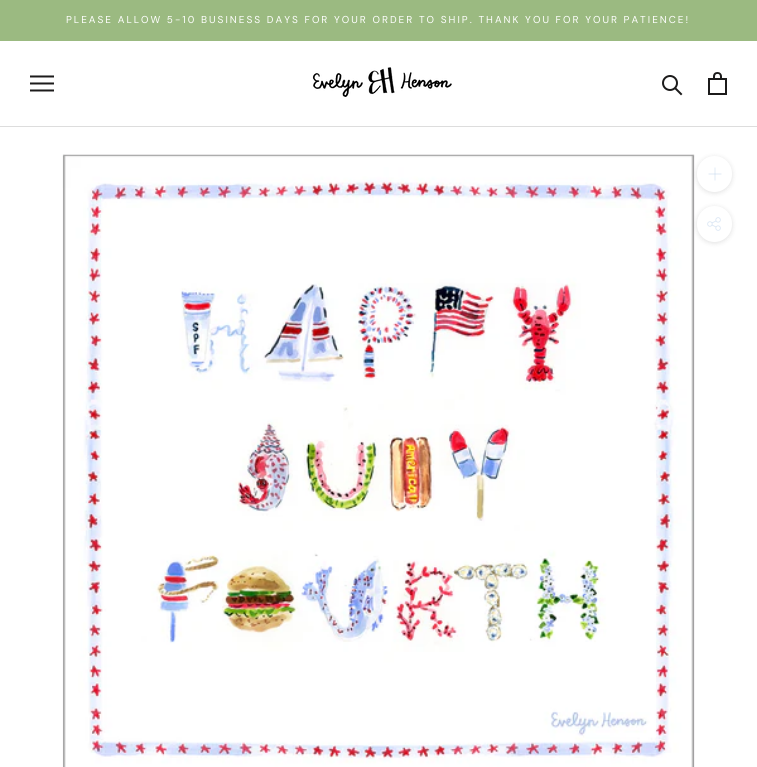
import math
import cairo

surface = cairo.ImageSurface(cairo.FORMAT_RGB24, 757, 767)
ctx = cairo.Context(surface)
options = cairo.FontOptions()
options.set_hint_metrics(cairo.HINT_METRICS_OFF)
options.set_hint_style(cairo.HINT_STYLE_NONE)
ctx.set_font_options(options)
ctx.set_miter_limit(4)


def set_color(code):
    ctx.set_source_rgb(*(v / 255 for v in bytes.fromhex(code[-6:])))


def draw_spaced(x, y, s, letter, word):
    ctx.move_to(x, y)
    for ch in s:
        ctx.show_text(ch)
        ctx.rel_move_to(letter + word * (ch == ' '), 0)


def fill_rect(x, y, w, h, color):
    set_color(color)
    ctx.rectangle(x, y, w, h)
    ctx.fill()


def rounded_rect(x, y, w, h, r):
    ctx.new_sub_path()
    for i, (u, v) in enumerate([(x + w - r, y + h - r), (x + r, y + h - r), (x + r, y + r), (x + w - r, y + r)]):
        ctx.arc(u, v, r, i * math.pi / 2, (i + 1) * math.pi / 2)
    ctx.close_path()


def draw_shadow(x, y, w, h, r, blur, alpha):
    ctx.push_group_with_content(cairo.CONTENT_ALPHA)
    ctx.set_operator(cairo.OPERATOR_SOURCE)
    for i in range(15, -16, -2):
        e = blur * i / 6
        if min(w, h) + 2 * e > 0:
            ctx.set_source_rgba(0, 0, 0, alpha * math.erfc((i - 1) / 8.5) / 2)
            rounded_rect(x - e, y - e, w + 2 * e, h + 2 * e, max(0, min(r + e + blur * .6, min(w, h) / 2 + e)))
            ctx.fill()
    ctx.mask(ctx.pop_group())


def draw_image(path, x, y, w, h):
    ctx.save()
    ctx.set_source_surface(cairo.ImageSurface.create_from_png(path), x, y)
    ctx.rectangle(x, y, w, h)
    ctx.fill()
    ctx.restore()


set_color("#ffffff")
ctx.paint()
fill_rect(0, 0, 757, 41, "#9bba81")
ctx.select_font_face("DM Sans")
ctx.set_font_size(10)
set_color("#ffffff")
draw_spaced(66, 23, "PLEASE ALLOW 5-10 BUSINESS DAYS FOR YOUR ORDER TO SHIP. THANK YOU FOR YOUR PATIENCE!", 2, 0)
fill_rect(0, 126, 757, 1, "#dddddd")
draw_image("assets/img1.png", 30, 75, 24, 17)
draw_image("assets/img2.png", 312, 67, 140, 30)
ctx.new_path()
ctx.move_to(681, 94)
ctx.line_to(675.5, 88.5)
set_color("#1c1b1b")
ctx.set_line_cap(cairo.LINE_CAP_SQUARE)
ctx.stroke()
ctx.arc(670, 83, 7, 0, 2 * math.pi)
ctx.set_line_cap(cairo.LINE_CAP_BUTT)
ctx.stroke()
draw_image("assets/img3.png", 708, 72, 19, 23)
draw_image("assets/img4.png", 62, 154, 633, 613)
set_color("#363636")
draw_shadow(697, 157, 35, 36, 17.5, 2.5, 0.15)
set_color("#ffffff")
rounded_rect(697, 156, 35, 36, 17.5)
ctx.fill()
ctx.new_path()
ctx.move_to(715, 168)
ctx.line_to(715, 180)
set_color("#dee8f5")
ctx.set_line_width(0.9)
ctx.set_line_cap(cairo.LINE_CAP_SQUARE)
ctx.stroke()
ctx.new_path()
ctx.move_to(709, 174)
ctx.line_to(721, 174)
ctx.set_source_rgba(0.737, 0.82, 0.918, 0.5)
ctx.stroke()
set_color("#363636")
draw_shadow(697, 207, 35, 36, 17.5, 2.5, 0.15)
set_color("#ffffff")
rounded_rect(697, 206, 35, 36, 17.5)
ctx.fill()
draw_image("assets/img5.png", 707, 217, 14, 14)
surface.write_to_png("output.png")
